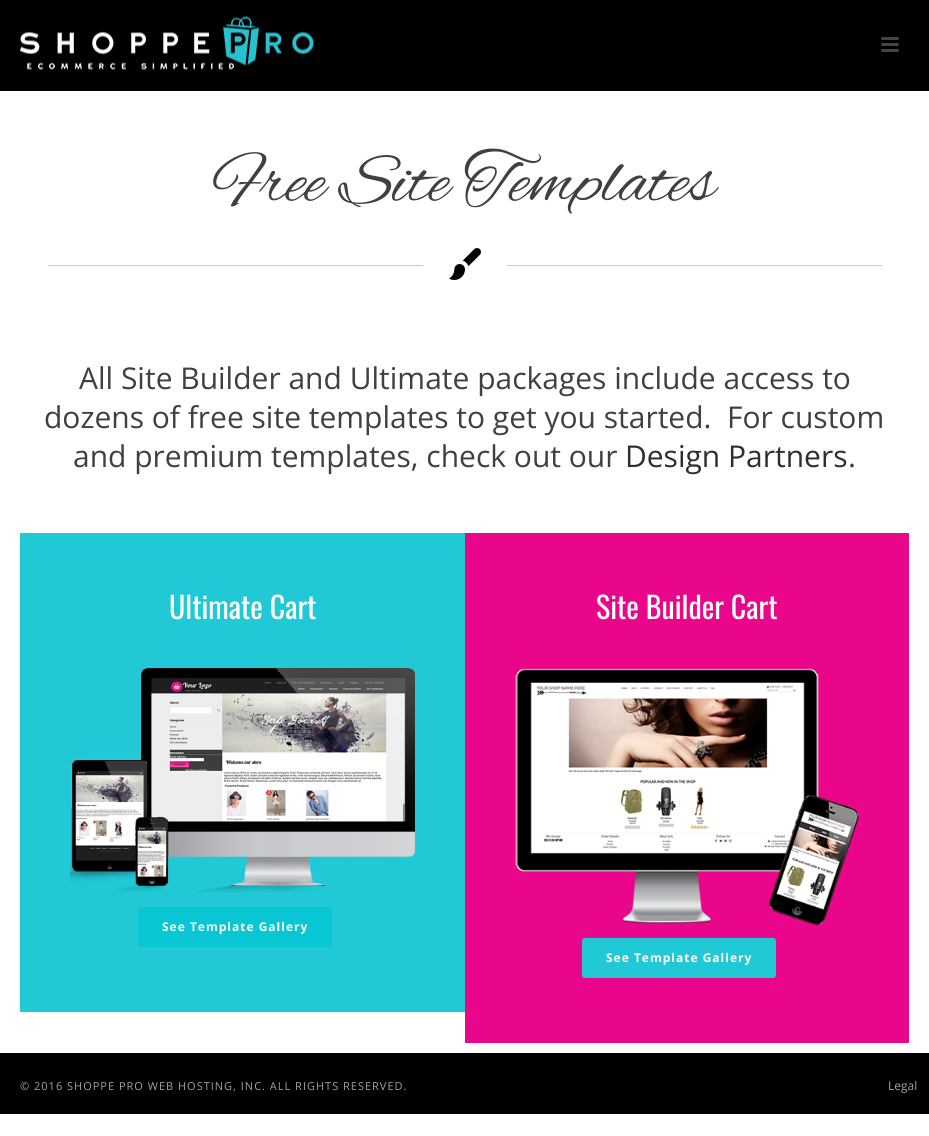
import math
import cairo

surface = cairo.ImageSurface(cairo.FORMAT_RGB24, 929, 1136)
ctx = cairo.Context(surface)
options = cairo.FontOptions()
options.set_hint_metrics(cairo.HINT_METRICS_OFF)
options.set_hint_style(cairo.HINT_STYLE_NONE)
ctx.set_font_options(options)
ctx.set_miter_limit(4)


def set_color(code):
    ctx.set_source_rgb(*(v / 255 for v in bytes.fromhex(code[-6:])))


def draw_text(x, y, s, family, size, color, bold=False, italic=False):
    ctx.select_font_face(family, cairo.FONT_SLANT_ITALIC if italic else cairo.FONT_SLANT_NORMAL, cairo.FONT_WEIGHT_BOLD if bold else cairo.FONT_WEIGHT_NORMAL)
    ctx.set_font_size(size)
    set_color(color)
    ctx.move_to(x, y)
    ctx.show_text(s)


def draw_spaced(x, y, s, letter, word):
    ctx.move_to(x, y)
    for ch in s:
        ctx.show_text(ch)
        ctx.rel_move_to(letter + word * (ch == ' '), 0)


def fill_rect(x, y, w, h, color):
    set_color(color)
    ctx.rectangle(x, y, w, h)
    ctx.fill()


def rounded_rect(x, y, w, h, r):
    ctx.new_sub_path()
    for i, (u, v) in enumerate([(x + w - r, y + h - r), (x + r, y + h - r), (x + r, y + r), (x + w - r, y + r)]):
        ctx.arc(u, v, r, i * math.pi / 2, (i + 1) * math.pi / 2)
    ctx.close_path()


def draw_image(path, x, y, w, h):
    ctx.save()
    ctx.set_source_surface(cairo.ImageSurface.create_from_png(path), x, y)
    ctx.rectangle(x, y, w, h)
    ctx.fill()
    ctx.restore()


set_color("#ffffff")
ctx.paint()
fill_rect(0, 0, 929, 91, "#000000")
draw_image("assets/img1.png", 20, 16, 294, 54)
set_color("#444444")
rounded_rect(881, 37, 18, 3, 1.5)
ctx.fill()
rounded_rect(881, 43, 18, 3, 1.5)
ctx.fill()
rounded_rect(881, 49, 18, 3, 1.5)
ctx.fill()
draw_text(214, 200, "Free Site Templates", "Alex Brush", 72, "#404040")
fill_rect(48, 265, 375, 1, "#cccccc")
draw_image("assets/img2.png", 449, 248, 32, 32)
fill_rect(507, 265, 375, 1, "#cccccc")
draw_text(79, 389, "All Site Builder and Ultimate packages include access to", "Open Sans", 30, "#404040")
draw_text(44, 428, "dozens of free site templates to get you started.  For custom", "Open Sans", 30, "#404040")
draw_text(73, 467, "and premium templates, check out our", "Open Sans", 30, "#404040")
draw_text(625, 467, "Design Partners", "Open Sans", 30, "#2e2e2e")
draw_text(848, 467, ".", "Open Sans", 30, "#404040")
fill_rect(20, 533, 445, 479, "#21c8d6")
draw_text(169, 619, "Ultimate Cart", "Oswald", 30, "#ffffff")
draw_image("assets/img3.png", 70, 668, 345, 225)
set_color("#09c6d4")
rounded_rect(138, 907, 194, 40, 3)
ctx.fill()
ctx.select_font_face("Open Sans", cairo.FONT_SLANT_NORMAL, cairo.FONT_WEIGHT_BOLD)
ctx.set_font_size(12)
set_color("#ffffff")
draw_spaced(162, 931, "See Template Gallery", 1, 0)
fill_rect(465, 533, 444, 510, "#e9068b")
draw_text(596, 619, "Site Builder Cart", "Oswald", 30, "#ffffff")
draw_image("assets/img4.png", 515, 668, 344, 259)
set_color("#21c8d6")
rounded_rect(582, 938, 194, 40, 3)
ctx.fill()
ctx.select_font_face("Open Sans", cairo.FONT_SLANT_NORMAL, cairo.FONT_WEIGHT_BOLD)
ctx.set_font_size(12)
set_color("#ffffff")
draw_spaced(606, 962, "See Template Gallery", 1, 0)
fill_rect(0, 1053, 929, 61, "#000000")
ctx.select_font_face("Open Sans")
ctx.set_font_size(11)
set_color("#a3a3a3")
draw_spaced(20, 1090, "© 2016 SHOPPE PRO WEB HOSTING, INC. ALL RIGHTS RESERVED.", 1, 0)
draw_text(888, 1090, "Legal", "Open Sans", 12, "#a3a3a3")
surface.write_to_png("output.png")
